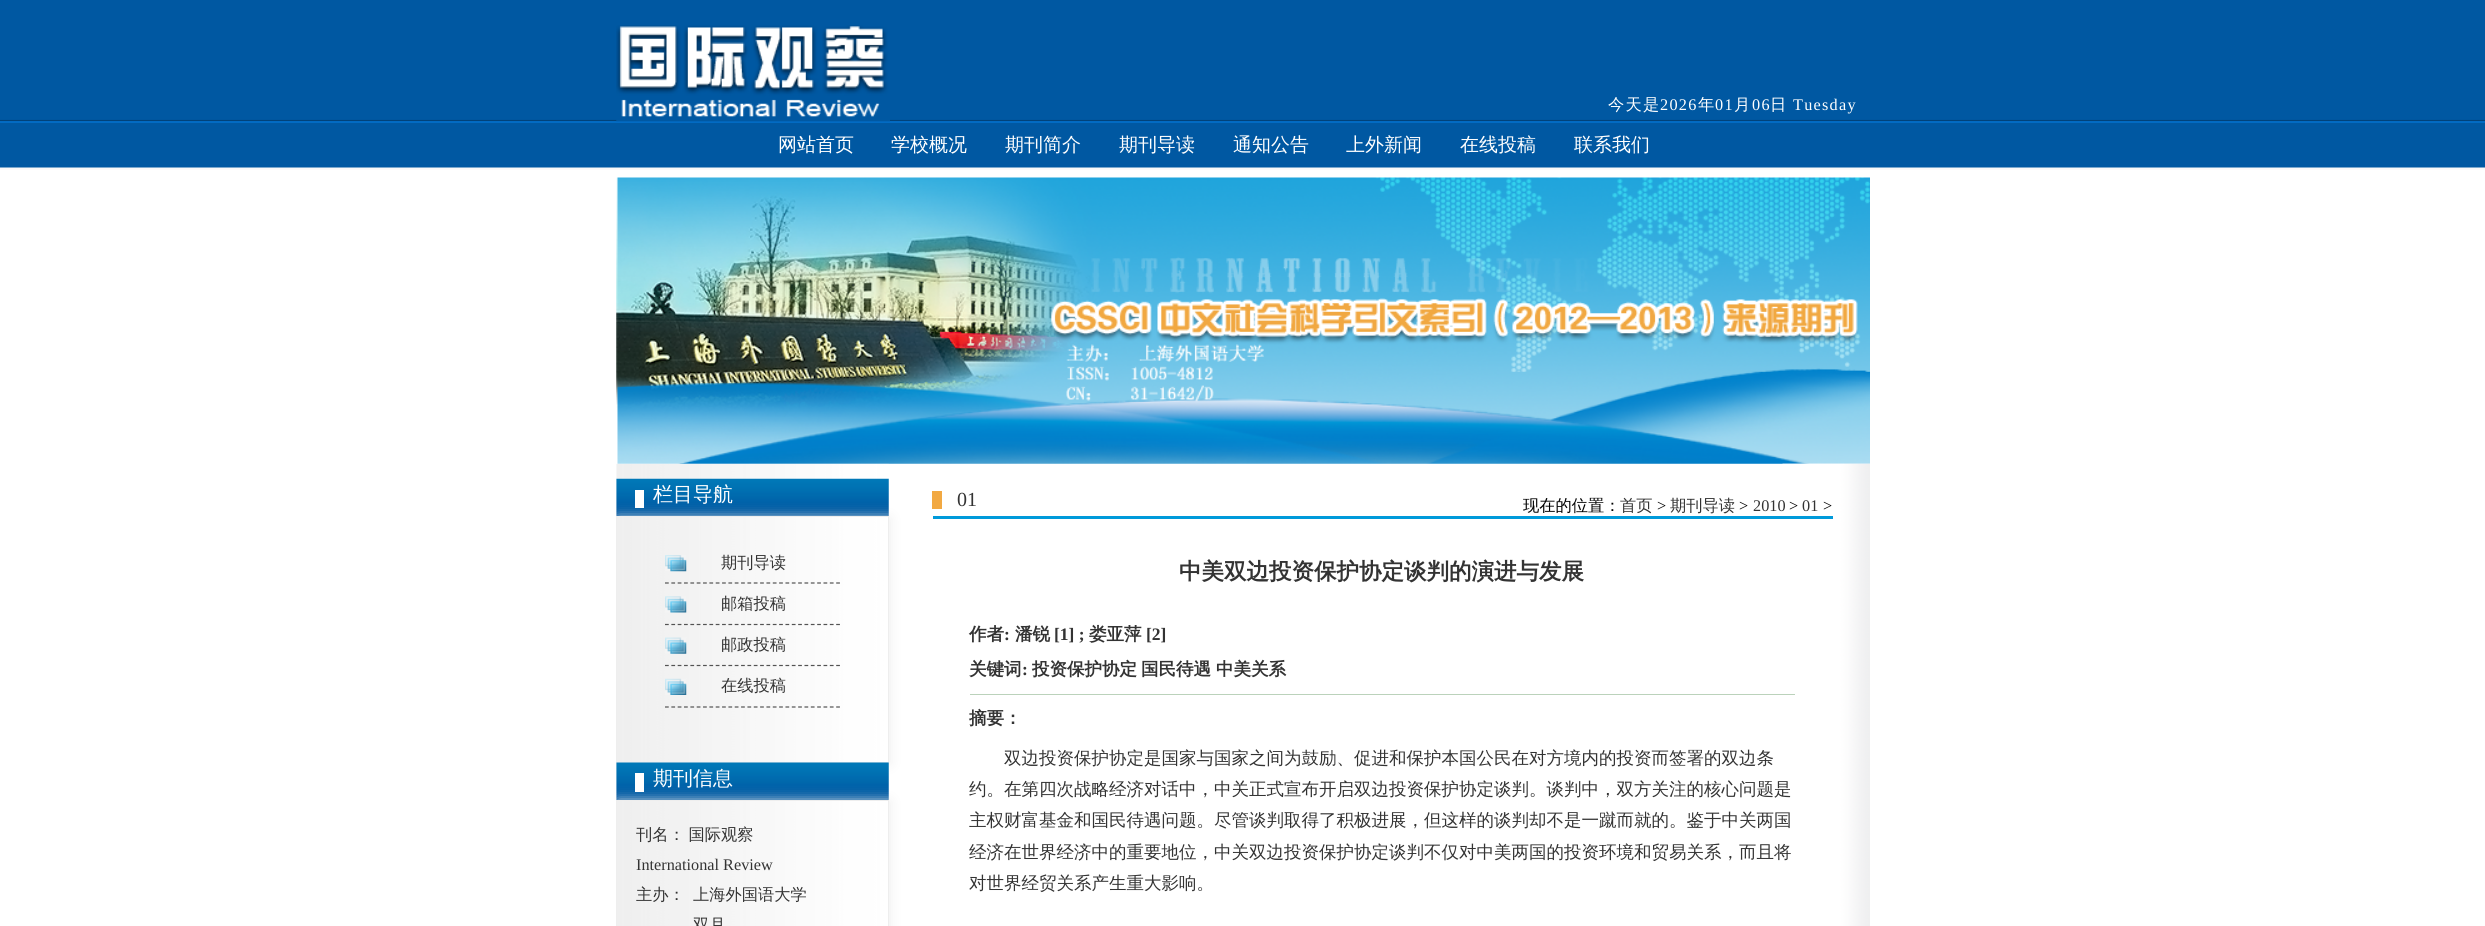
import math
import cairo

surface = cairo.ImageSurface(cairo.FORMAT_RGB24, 2485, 926)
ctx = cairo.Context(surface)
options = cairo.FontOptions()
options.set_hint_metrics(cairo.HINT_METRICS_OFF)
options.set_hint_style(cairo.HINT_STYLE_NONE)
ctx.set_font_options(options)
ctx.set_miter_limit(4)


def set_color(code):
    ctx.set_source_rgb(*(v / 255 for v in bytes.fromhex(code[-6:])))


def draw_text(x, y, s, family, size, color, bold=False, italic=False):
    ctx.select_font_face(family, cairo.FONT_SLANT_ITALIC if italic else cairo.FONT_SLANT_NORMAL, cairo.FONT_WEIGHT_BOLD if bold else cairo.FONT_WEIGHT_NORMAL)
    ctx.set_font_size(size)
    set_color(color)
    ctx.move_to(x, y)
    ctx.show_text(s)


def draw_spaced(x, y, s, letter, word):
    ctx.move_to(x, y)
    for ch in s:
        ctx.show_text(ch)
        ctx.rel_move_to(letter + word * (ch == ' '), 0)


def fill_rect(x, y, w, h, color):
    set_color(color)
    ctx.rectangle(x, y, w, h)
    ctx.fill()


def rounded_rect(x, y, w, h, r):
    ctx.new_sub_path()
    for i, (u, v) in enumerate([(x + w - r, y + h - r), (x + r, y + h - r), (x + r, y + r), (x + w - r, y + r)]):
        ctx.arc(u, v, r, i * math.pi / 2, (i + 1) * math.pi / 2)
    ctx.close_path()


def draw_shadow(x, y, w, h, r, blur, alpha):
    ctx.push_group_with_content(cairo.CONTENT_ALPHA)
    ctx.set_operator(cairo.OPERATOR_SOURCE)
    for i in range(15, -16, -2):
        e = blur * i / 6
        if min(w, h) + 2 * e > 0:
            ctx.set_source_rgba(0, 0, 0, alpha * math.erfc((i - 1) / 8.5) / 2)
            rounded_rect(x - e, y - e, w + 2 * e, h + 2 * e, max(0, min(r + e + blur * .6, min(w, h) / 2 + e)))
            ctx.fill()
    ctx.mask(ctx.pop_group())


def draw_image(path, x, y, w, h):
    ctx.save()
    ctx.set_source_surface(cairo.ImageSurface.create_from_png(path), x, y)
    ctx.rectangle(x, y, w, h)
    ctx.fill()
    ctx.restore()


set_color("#ffffff")
ctx.paint()
draw_image("assets/img1.png", 0, 0, 2485, 170)
draw_image("assets/img2.png", 616, 25, 274, 97)
ctx.select_font_face("WenQuanYi Zen Hei Medium")
ctx.set_font_size(16.25)
set_color("#ffffff")
draw_spaced(1608, 110, "今天是", 1.25, 0)
ctx.select_font_face("Liberation Serif")
draw_spaced(1660, 110, "2026", 1.25, 0)
ctx.select_font_face("WenQuanYi Zen Hei Medium")
draw_spaced(1698, 110, "年", 1.25, 0)
ctx.select_font_face("Liberation Serif")
draw_spaced(1715, 110, "01", 1.25, 0)
ctx.select_font_face("WenQuanYi Zen Hei Medium")
draw_spaced(1734, 110, "月", 1.25, 0)
ctx.select_font_face("Liberation Serif")
draw_spaced(1752, 110, "06", 1.25, 0)
ctx.select_font_face("WenQuanYi Zen Hei Medium")
draw_spaced(1770, 110, "日", 1.25, 0)
ctx.select_font_face("Liberation Serif")
draw_spaced(1793, 110, "Tuesday", 1.25, 0)
draw_text(778, 151, "网站首页", "WenQuanYi Zen Hei Medium", 19, "#ffffff")
draw_text(891, 151, "学校概况", "WenQuanYi Zen Hei Medium", 19, "#ffffff")
draw_text(1005, 151, "期刊简介", "WenQuanYi Zen Hei Medium", 19, "#ffffff")
draw_text(1119, 151, "期刊导读", "WenQuanYi Zen Hei Medium", 19, "#ffffff")
draw_text(1233, 151, "通知公告", "WenQuanYi Zen Hei Medium", 19, "#ffffff")
draw_text(1346, 151, "上外新闻", "WenQuanYi Zen Hei Medium", 19, "#ffffff")
draw_text(1460, 151, "在线投稿", "WenQuanYi Zen Hei Medium", 19, "#ffffff")
draw_text(1574, 151, "联系我们", "WenQuanYi Zen Hei Medium", 19, "#ffffff")
draw_image("assets/img3.png", 616, 177, 1254, 287)
draw_image("assets/img4.png", 1782, 463, 88, 463)
draw_image("assets/img5.png", 616, 463, 273, 463)
draw_image("assets/img6.png", 616, 478, 273, 38)
ctx.save()
ctx.rectangle(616, 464, 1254, 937)
ctx.clip()
ctx.set_fill_rule(cairo.FILL_RULE_EVEN_ODD)
ctx.new_path()
ctx.move_to(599, 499)
ctx.line_to(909, 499)
ctx.line_to(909, 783)
ctx.line_to(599, 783)
ctx.close_path()
ctx.move_to(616, 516)
ctx.line_to(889, 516)
ctx.line_to(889, 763)
ctx.line_to(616, 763)
ctx.close_path()
ctx.clip()
set_color("#eeeeee")
draw_shadow(618, 518, 272, 246, 0, 6, 1)
ctx.restore()
fill_rect(635, 490, 9, 18, "#ffffff")
draw_text(653, 501, "栏目导航", "WenQuanYi Zen Hei Medium", 20, "#ffffff")
ctx.rectangle(616.5, 516.5, 272, 246)
set_color("#eeeeee")
ctx.set_line_width(1)
ctx.stroke()
draw_image("assets/img7.png", 665, 555, 22, 17)
ctx.new_path()
ctx.move_to(665, 583)
ctx.line_to(840, 583)
set_color("#535353")
ctx.set_line_width(1.2)
ctx.set_dash([3.75, 2.59])
ctx.stroke()
draw_text(721, 568, "期刊导读", "WenQuanYi Zen Hei Medium", 16.25, "#333333")
draw_image("assets/img8.png", 665, 596, 22, 17)
ctx.new_path()
ctx.move_to(665, 624.5)
ctx.line_to(840, 624.5)
set_color("#535353")
ctx.stroke()
draw_text(721, 609, "邮箱投稿", "WenQuanYi Zen Hei Medium", 16.25, "#333333")
draw_image("assets/img9.png", 665, 637, 22, 17)
ctx.new_path()
ctx.move_to(665, 665.5)
ctx.line_to(840, 665.5)
set_color("#535353")
ctx.stroke()
draw_text(721, 650, "邮政投稿", "WenQuanYi Zen Hei Medium", 16.25, "#333333")
draw_image("assets/img10.png", 665, 678, 22, 17)
ctx.new_path()
ctx.move_to(665, 707)
ctx.line_to(840, 707)
set_color("#535353")
ctx.stroke()
draw_text(721, 691, "在线投稿", "WenQuanYi Zen Hei Medium", 16.25, "#333333")
draw_image("assets/img11.png", 616, 762, 273, 38)
ctx.save()
ctx.rectangle(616, 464, 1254, 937)
ctx.clip()
ctx.set_fill_rule(cairo.FILL_RULE_EVEN_ODD)
ctx.new_path()
ctx.move_to(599, 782)
ctx.line_to(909, 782)
ctx.line_to(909, 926)
ctx.line_to(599, 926)
ctx.close_path()
ctx.move_to(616, 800)
ctx.line_to(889, 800)
ctx.line_to(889, 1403)
ctx.line_to(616, 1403)
ctx.close_path()
ctx.clip()
set_color("#eeeeee")
draw_shadow(618, 801, 272, 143, 0, 6, 1)
ctx.restore()
fill_rect(635, 773, 9, 19, "#ffffff")
draw_text(653, 785, "期刊信息", "WenQuanYi Zen Hei Medium", 20, "#ffffff")
ctx.rectangle(616.5, 800.5, 272, 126)
set_color("#eeeeee")
ctx.set_line_width(1)
ctx.set_dash([])
ctx.stroke()
ctx.set_font_size(16.25)
set_color("#333333")
draw_spaced(636, 840, "刊名： 国际观察", 0, -1)
draw_text(636, 870, "International Review", "Liberation Serif", 16.25, "#333333")
draw_text(636, 900, "主办：", "WenQuanYi Zen Hei Medium", 16.25, "#333333")
draw_text(693, 900, "上海外国语大学", "WenQuanYi Zen Hei Medium", 16.25, "#333333")
draw_text(693, 930, "双月", "WenQuanYi Zen Hei Medium", 16.25, "#333333")
fill_rect(932, 491, 10, 18, "#f2a942")
draw_text(957, 506, "01", "Liberation Serif", 20, "#333333")
draw_text(1523, 511, "现在的位置：", "WenQuanYi Zen Hei Medium", 16.25, "#000000")
draw_text(1620, 511, "首页", "WenQuanYi Zen Hei Medium", 16.25, "#333333")
draw_text(1657, 511, ">", "Liberation Serif", 16.25, "#000000")
draw_text(1670, 511, "期刊导读", "WenQuanYi Zen Hei Medium", 16.25, "#333333")
draw_text(1739, 511, ">", "Liberation Serif", 16.25, "#000000")
draw_text(1753, 511, "2010", "Liberation Serif", 16.25, "#333333")
draw_text(1789, 511, ">", "Liberation Serif", 16.25, "#000000")
draw_text(1802, 511, "01", "Liberation Serif", 16.25, "#333333")
draw_text(1823, 511, ">", "Liberation Serif", 16.25, "#000000")
fill_rect(933, 516, 900, 3, "#009ada")
draw_text(1179, 579, "中美双边投资保护协定谈判的演进与发展", "WenQuanYi Zen Hei", 22.5, "#333333", bold=True)
draw_text(969, 640, "作者", "WenQuanYi Zen Hei", 17.5, "#333333", bold=True)
draw_text(1004, 640, ":", "Liberation Serif", 17.5, "#333333", bold=True)
draw_text(1015, 640, "潘锐", "WenQuanYi Zen Hei", 17.5, "#333333", bold=True)
draw_text(1054, 640, "[1] ;", "Liberation Serif", 17.5, "#333333", bold=True)
draw_text(1089, 640, "娄亚萍", "WenQuanYi Zen Hei", 17.5, "#333333", bold=True)
draw_text(1146, 640, "[2]", "Liberation Serif", 17.5, "#333333", bold=True)
fill_rect(970, 694, 825, 1, "#bbd2bb")
draw_text(969, 675, "关键词", "WenQuanYi Zen Hei", 17.5, "#333333", bold=True)
draw_text(1022, 675, ":", "Liberation Serif", 17.5, "#333333", bold=True)
draw_text(1032, 675, "投资保护协定", "WenQuanYi Zen Hei", 17.5, "#333333", bold=True)
draw_text(1141, 675, "国民待遇", "WenQuanYi Zen Hei", 17.5, "#333333", bold=True)
draw_text(1216, 675, "中美关系", "WenQuanYi Zen Hei", 17.5, "#333333", bold=True)
draw_text(969, 724, "摘要：", "WenQuanYi Zen Hei", 17.5, "#333333", bold=True)
draw_text(1004, 764, "双边投资保护协定是国家与国家之间为鼓励、促进和保护本国公民在对方境内的投资而签署的双边条", "WenQuanYi Zen Hei Medium", 17.5, "#333333")
draw_text(969, 795, "约。在第四次战略经济对话中，中关正式宣布开启双边投资保护协定谈判。谈判中，双方关注的核心问题是", "WenQuanYi Zen Hei Medium", 17.5, "#333333")
draw_text(969, 826, "主权财富基金和国民待遇问题。尽管谈判取得了积极进展，但这样的谈判却不是一蹴而就的。鉴于中关两国", "WenQuanYi Zen Hei Medium", 17.5, "#333333")
draw_text(969, 858, "经济在世界经济中的重要地位，中关双边投资保护协定谈判不仅对中美两国的投资环境和贸易关系，而且将", "WenQuanYi Zen Hei Medium", 17.5, "#333333")
draw_text(969, 889, "对世界经贸关系产生重大影响。", "WenQuanYi Zen Hei Medium", 17.5, "#333333")
surface.write_to_png("output.png")
